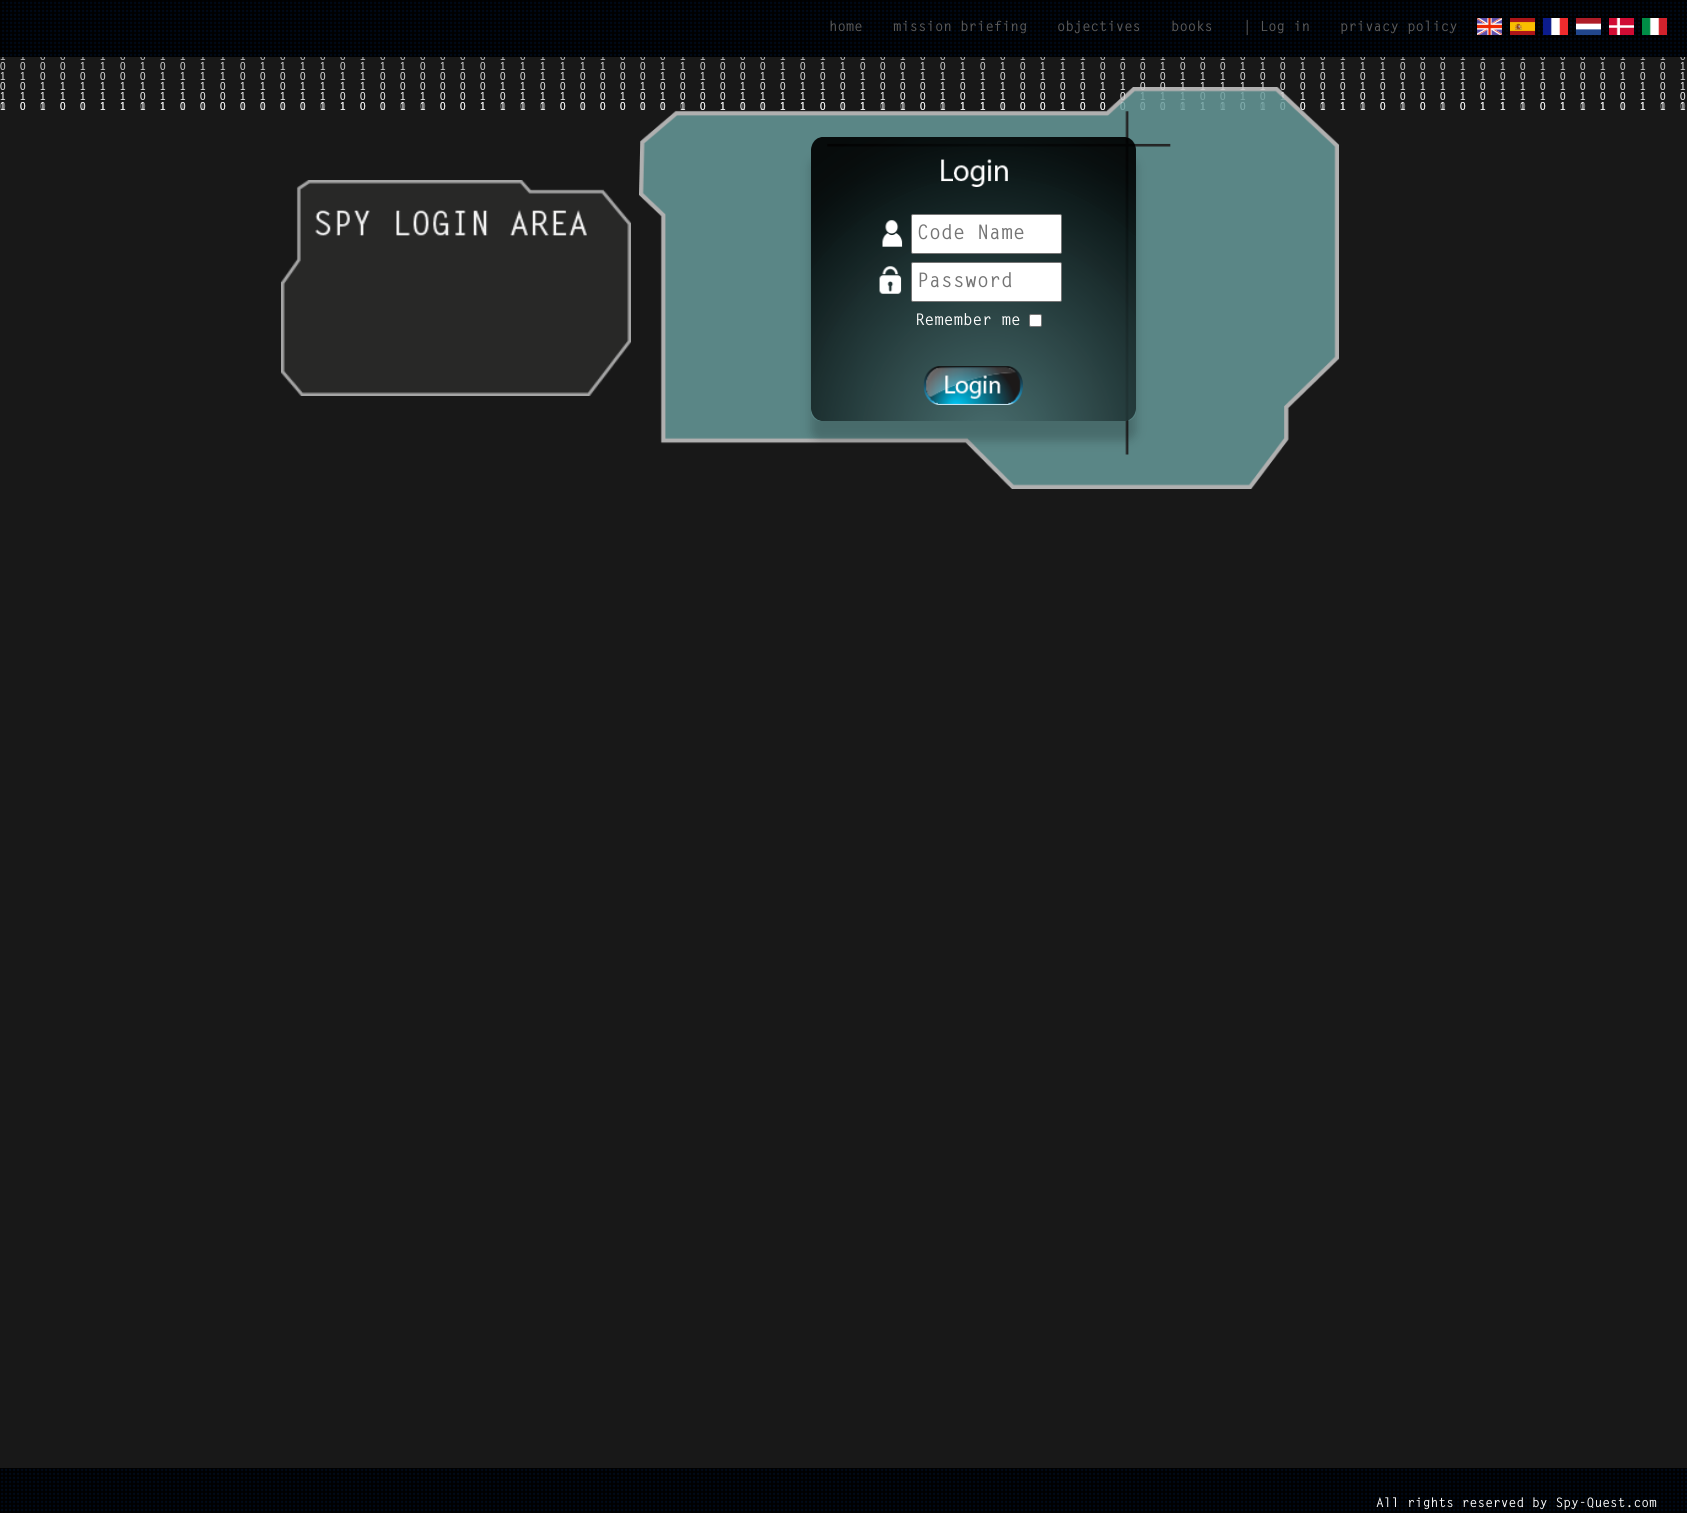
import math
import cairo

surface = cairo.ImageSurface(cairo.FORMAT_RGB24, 1687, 1513)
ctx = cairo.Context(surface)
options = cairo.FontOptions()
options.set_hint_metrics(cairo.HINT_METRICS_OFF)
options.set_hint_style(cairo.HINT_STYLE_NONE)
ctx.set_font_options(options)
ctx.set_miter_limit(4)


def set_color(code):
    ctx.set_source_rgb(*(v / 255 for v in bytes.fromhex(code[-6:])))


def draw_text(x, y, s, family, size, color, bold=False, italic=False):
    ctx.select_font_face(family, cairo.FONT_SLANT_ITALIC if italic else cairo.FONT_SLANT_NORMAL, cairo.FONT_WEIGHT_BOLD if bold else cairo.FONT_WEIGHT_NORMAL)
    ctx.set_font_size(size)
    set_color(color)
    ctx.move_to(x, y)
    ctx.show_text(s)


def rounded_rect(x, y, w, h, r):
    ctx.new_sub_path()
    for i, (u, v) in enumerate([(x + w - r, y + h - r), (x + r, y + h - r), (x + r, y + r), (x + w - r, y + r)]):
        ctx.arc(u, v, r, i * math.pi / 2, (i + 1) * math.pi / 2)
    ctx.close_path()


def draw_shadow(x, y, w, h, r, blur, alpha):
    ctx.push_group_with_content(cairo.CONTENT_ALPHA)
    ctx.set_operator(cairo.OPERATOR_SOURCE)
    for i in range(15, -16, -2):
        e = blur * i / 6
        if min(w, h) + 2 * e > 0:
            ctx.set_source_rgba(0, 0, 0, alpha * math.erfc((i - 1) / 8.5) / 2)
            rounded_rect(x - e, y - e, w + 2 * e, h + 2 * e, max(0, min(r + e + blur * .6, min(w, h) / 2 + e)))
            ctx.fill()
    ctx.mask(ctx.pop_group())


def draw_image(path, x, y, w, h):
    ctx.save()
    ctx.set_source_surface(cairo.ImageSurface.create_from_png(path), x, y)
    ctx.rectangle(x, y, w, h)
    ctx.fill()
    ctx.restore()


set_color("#333333")
ctx.paint()
draw_image("assets/img1.png", 0, 0, 1687, 57)
draw_text(829, 31, "home", "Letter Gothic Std", 14, "#5c5c5c", bold=True)
draw_text(893, 31, "mission briefing", "Letter Gothic Std", 14, "#5c5c5c", bold=True)
draw_text(1057, 31, "objectives", "Letter Gothic Std", 14, "#5c5c5c", bold=True)
draw_text(1171, 31, "books", "Letter Gothic Std", 14, "#5c5c5c", bold=True)
draw_text(1243, 31, "| Log in", "Letter Gothic Std", 14, "#5c5c5c", bold=True)
draw_text(1340, 31, "privacy policy", "Letter Gothic Std", 14, "#5c5c5c", bold=True)
draw_image("assets/img2.png", 1477, 18, 25, 17)
draw_image("assets/img3.png", 1510, 18, 25, 17)
draw_image("assets/img4.png", 1543, 18, 25, 17)
draw_image("assets/img5.png", 1576, 18, 25, 17)
draw_image("assets/img6.png", 1609, 18, 25, 17)
draw_image("assets/img7.png", 1642, 18, 25, 17)
draw_image("assets/img8.png", 0, 57, 1687, 1411)
draw_image("assets/img9.png", 281, 180, 350, 216)
draw_image("assets/img10.png", 639, 87, 700, 402)
ctx.save()
ctx.set_fill_rule(cairo.FILL_RULE_EVEN_ODD)
ctx.new_path()
ctx.move_to(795, 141)
ctx.line_to(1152, 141)
ctx.line_to(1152, 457)
ctx.line_to(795, 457)
ctx.close_path()
ctx.move_to(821, 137)
ctx.line_to(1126, 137)
ctx.curve_to(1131.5, 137, 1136, 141.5, 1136, 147)
ctx.line_to(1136, 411)
ctx.curve_to(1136, 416.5, 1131.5, 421, 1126, 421)
ctx.line_to(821, 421)
ctx.curve_to(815.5, 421, 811, 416.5, 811, 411)
ctx.line_to(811, 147)
ctx.curve_to(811, 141.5, 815.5, 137, 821, 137)
ctx.close_path()
ctx.clip()
set_color("#000000")
draw_shadow(811, 157, 325, 284, 10, 5, 0.2)
ctx.restore()
draw_image("assets/img11.png", 811, 137, 325, 284)
set_color("#ffffff")
rounded_rect(911.5, 214.5, 150, 39, 1.5)
ctx.fill_preserve()
set_color("#767676")
ctx.set_line_width(1)
ctx.stroke()
draw_text(917, 239, "Code Name", "Letter Gothic Std", 20, "#757575", bold=True)
set_color("#ffffff")
rounded_rect(911.5, 262.5, 150, 39, 1.5)
ctx.fill_preserve()
set_color("#767676")
ctx.stroke()
draw_text(917, 287, "Password", "Letter Gothic Std", 20, "#757575", bold=True)
draw_text(915, 325, "Remember me", "Letter Gothic Std", 16, "#ffffff", bold=True)
rounded_rect(1029.5, 314.5, 12, 12, 1.5)
ctx.fill_preserve()
set_color("#767676")
ctx.stroke()
draw_image("assets/img12.png", 923, 366, 100, 39)
draw_image("assets/img13.png", 0, 1468, 1687, 45)
draw_text(1376, 1507, "All rights reserved by Spy-Quest.com", "Letter Gothic Std", 13, "#ffffff", bold=True)
surface.write_to_png("output.png")
